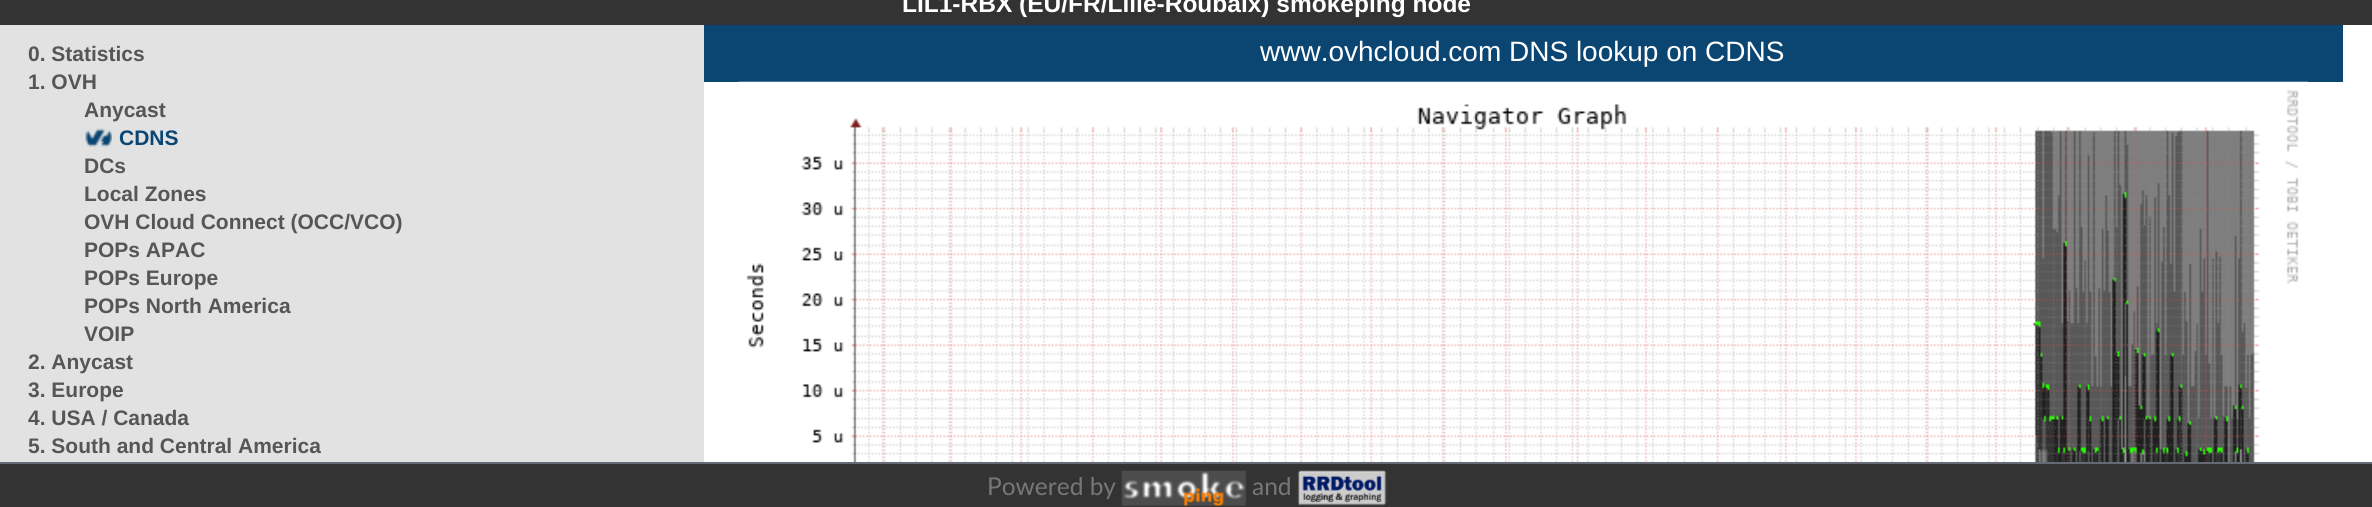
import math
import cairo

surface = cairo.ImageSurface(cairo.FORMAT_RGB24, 2372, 507)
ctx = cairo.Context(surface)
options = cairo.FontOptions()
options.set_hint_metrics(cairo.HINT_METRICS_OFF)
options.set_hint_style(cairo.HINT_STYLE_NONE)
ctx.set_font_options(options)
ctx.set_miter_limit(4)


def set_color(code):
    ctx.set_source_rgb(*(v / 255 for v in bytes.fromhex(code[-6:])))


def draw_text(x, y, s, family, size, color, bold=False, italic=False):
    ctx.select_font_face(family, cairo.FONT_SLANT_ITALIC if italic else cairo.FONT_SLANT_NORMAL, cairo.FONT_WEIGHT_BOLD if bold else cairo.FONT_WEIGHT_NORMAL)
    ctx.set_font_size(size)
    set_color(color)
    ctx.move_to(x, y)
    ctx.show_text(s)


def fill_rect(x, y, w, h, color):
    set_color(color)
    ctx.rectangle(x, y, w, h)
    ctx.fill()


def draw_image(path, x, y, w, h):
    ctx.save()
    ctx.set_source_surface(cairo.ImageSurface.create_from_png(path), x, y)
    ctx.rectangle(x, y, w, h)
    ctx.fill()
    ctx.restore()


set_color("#ffffff")
ctx.paint()
fill_rect(0, 0, 2372, 25, "#333333")
draw_text(902, 12, "LIL1-RBX (EU/FR/Lille-Roubaix) smokeping node", "Liberation Sans", 24.5, "#ffffff", bold=True)
fill_rect(0, 25, 704, 437, "#e2e2e2")
draw_text(28, 61, "0. Statistics", "Liberation Sans", 21, "#565656", bold=True)
draw_text(28, 89, "1. OVH", "Liberation Sans", 21, "#565656", bold=True)
draw_text(84, 117, "Anycast", "Liberation Sans", 21, "#565656", bold=True)
draw_image("assets/img1.png", 85, 128, 27, 19)
draw_text(119, 145, "CDNS", "Liberation Sans", 21, "#0b4672", bold=True)
draw_text(84, 173, "DCs", "Liberation Sans", 21, "#565656", bold=True)
draw_text(84, 201, "Local Zones", "Liberation Sans", 21, "#565656", bold=True)
draw_text(84, 229, "OVH Cloud Connect (OCC/VCO)", "Liberation Sans", 21, "#565656", bold=True)
draw_text(84, 257, "POPs APAC", "Liberation Sans", 21, "#565656", bold=True)
draw_text(84, 285, "POPs Europe", "Liberation Sans", 21, "#565656", bold=True)
draw_text(84, 313, "POPs North America", "Liberation Sans", 21, "#565656", bold=True)
draw_text(84, 341, "VOIP", "Liberation Sans", 21, "#565656", bold=True)
draw_text(28, 369, "2. Anycast", "Liberation Sans", 21, "#565656", bold=True)
draw_text(28, 397, "3. Europe", "Liberation Sans", 21, "#565656", bold=True)
draw_text(28, 425, "4. USA / Canada", "Liberation Sans", 21, "#565656", bold=True)
draw_text(28, 453, "5. South and Central America", "Liberation Sans", 21, "#565656", bold=True)
fill_rect(704, 25, 1639, 57, "#0b4672")
draw_text(1260, 61, "www.ovhcloud.com DNS lookup on CDNS", "Liberation Sans", 28, "#ffffff")
draw_image("assets/img2.png", 738, 81, 1571, 381)
fill_rect(0, 464, 2372, 43, "#333333")
fill_rect(0, 462, 2372, 2, "#666a73")
draw_text(987, 495, "Powered by", "Lato", 24.5, "#777777")
draw_image("assets/img3.png", 1121, 470, 126, 36)
draw_text(1252, 495, "and", "Lato", 24.5, "#777777")
draw_image("assets/img4.png", 1297, 470, 90, 36)
surface.write_to_png("output.png")
